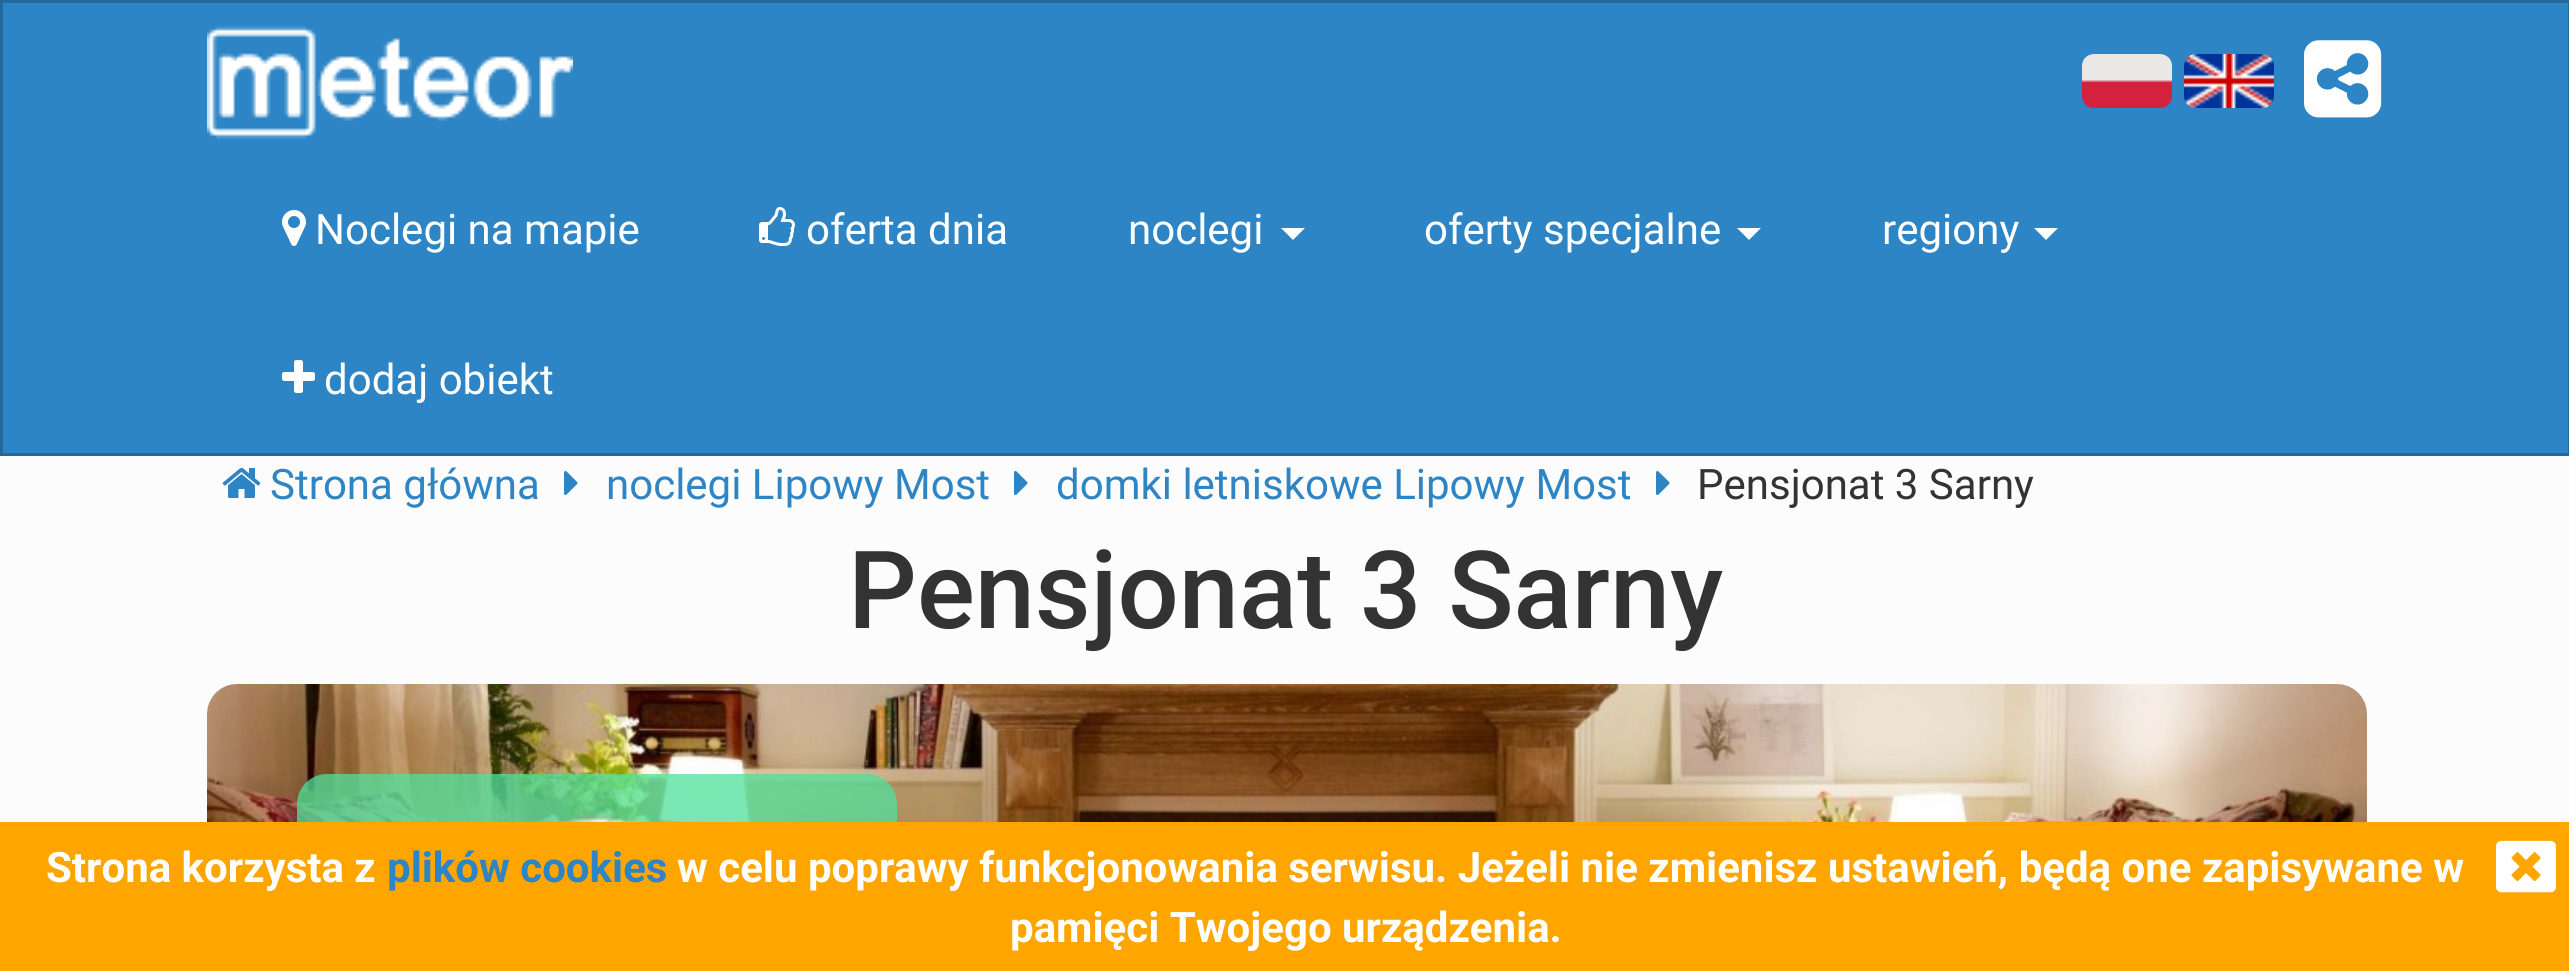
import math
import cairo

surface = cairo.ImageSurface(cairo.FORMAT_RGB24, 2569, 971)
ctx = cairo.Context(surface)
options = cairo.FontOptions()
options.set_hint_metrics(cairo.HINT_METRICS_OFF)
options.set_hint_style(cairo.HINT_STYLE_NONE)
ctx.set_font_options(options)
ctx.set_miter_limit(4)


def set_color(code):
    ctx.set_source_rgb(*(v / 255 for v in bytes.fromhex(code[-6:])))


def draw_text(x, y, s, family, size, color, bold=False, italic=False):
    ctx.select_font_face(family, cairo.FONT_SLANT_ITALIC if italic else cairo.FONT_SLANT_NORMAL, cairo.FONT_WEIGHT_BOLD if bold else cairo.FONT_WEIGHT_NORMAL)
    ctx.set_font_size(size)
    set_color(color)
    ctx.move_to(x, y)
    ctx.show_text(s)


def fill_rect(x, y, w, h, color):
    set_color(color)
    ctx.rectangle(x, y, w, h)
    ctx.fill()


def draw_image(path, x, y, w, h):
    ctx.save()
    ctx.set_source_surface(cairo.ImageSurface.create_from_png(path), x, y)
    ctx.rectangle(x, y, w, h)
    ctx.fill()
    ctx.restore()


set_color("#fcfcfc")
ctx.paint()
set_color("#2d85c5")
ctx.rectangle(1.5, 1.5, 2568, 453)
ctx.fill_preserve()
set_color("#24699b")
ctx.set_line_width(3)
ctx.stroke()
draw_image("assets/img1.png", 207, 26, 366, 113)
draw_image("assets/img2.png", 2082, 54, 90, 54)
draw_image("assets/img3.png", 2184, 54, 90, 54)
draw_image("assets/img4.png", 2304, 40, 78, 78)
draw_image("assets/img5.png", 282, 210, 24, 36)
draw_text(315, 244, "Noclegi na mapie", "Roboto", 42, "#ffffff")
draw_image("assets/img6.png", 759, 207, 36, 39)
draw_text(806, 244, "oferta dnia", "Roboto", 42, "#ffffff")
draw_text(1128, 244, "noclegi", "Roboto", 42, "#ffffff")
ctx.new_path()
ctx.move_to(1281, 228)
ctx.line_to(1305, 228)
ctx.line_to(1293, 240)
ctx.close_path()
ctx.fill()
draw_text(1424, 244, "oferty specjalne", "Roboto", 42, "#ffffff")
ctx.new_path()
ctx.move_to(1737, 228)
ctx.line_to(1761, 228)
ctx.line_to(1749, 240)
ctx.close_path()
ctx.fill()
draw_text(1882, 244, "regiony", "Roboto", 42, "#ffffff")
ctx.new_path()
ctx.move_to(2034, 228)
ctx.line_to(2058, 228)
ctx.line_to(2046, 240)
ctx.close_path()
ctx.fill()
draw_image("assets/img7.png", 282, 360, 33, 33)
draw_text(324, 394, "dodaj obiekt", "Roboto", 42, "#ffffff")
draw_image("assets/img8.png", 222, 467, 39, 31)
draw_text(270, 499, "Strona główna", "Roboto", 42, "#2d85c5")
draw_image("assets/img9.png", 564, 471, 14, 24)
draw_text(606, 499, "noclegi Lipowy Most", "Roboto", 42, "#2d85c5")
draw_image("assets/img9.png", 1014, 471, 14, 24)
draw_text(1056, 499, "domki letniskowe Lipowy Most", "Roboto", 42, "#2d85c5")
draw_image("assets/img9.png", 1656, 471, 14, 24)
draw_text(1697, 499, "Pensjonat 3 Sarny", "Roboto", 42, "#333333")
draw_text(848, 628, "Pensjonat 3 Sarny", "Roboto Medium", 108, "#333333")
draw_image("assets/img10.png", 207, 684, 2160, 138)
draw_image("assets/img11.png", 297, 774, 600, 48)
fill_rect(0, 822, 2569, 149, "#ffa500")
draw_text(46, 882, "Strona korzysta z", "Roboto", 42, "#ffffff", bold=True)
draw_text(387, 882, "plików cookies", "Roboto", 42, "#2d85c5", bold=True)
draw_text(677, 882, "w celu poprawy funkcjonowania serwisu. Jeżeli nie zmienisz ustawień, będą one zapisywane w", "Roboto", 42, "#ffffff", bold=True)
draw_text(1010, 942, "pamięci Twojego urządzenia.", "Roboto", 42, "#ffffff", bold=True)
draw_image("assets/img12.png", 2496, 840, 60, 53)
surface.write_to_png("output.png")
